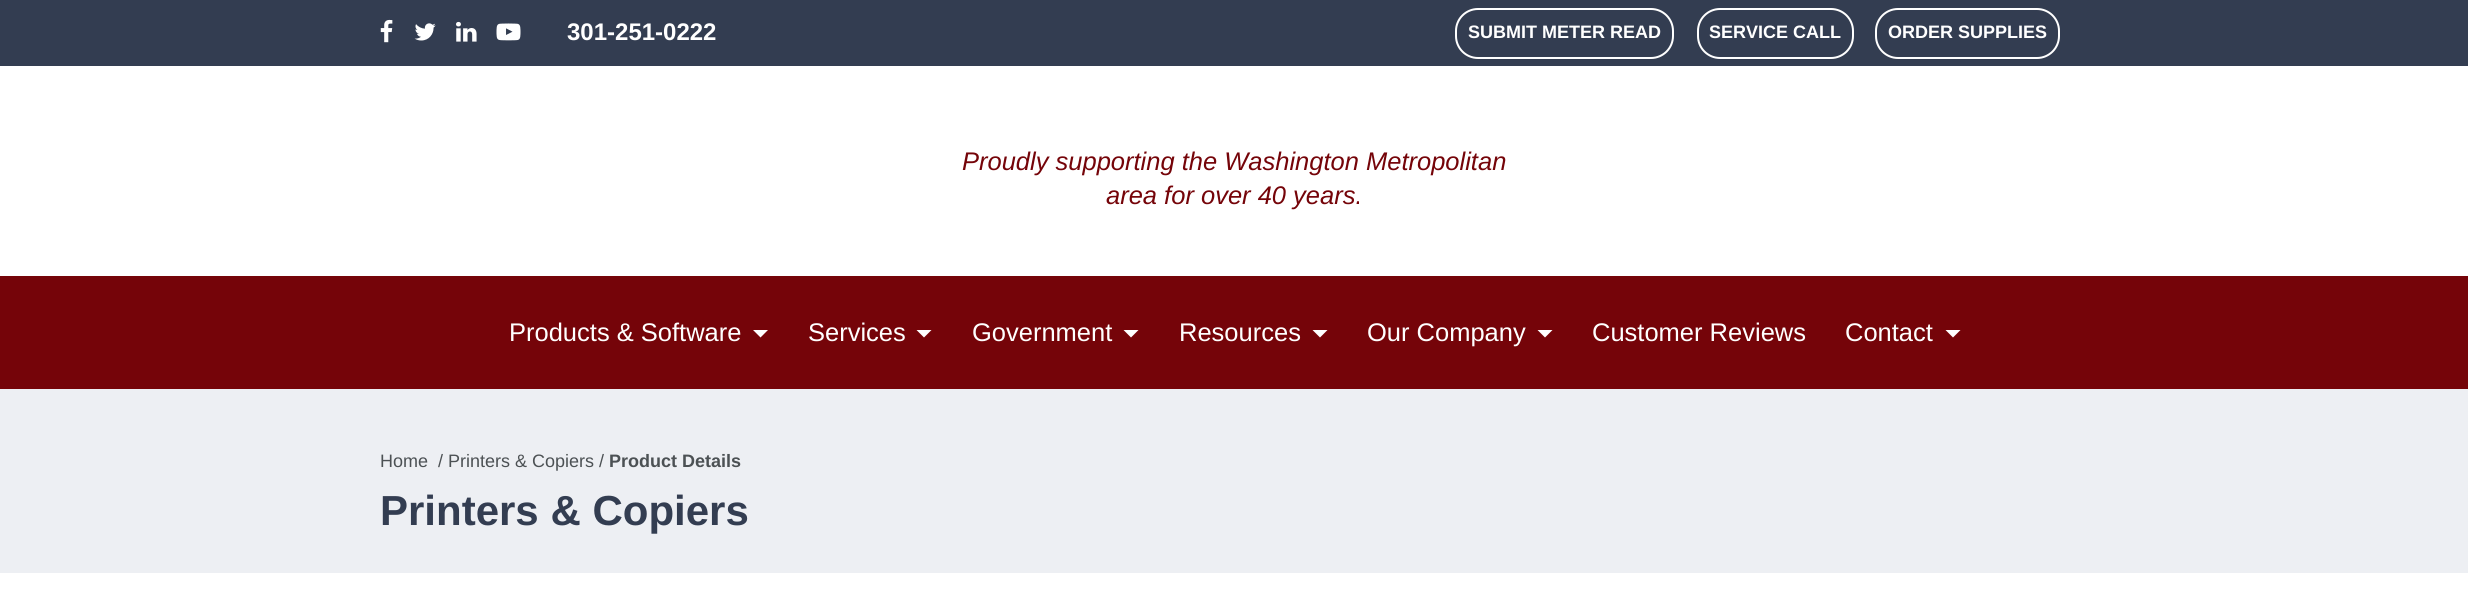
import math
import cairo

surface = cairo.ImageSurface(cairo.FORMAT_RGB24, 2468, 592)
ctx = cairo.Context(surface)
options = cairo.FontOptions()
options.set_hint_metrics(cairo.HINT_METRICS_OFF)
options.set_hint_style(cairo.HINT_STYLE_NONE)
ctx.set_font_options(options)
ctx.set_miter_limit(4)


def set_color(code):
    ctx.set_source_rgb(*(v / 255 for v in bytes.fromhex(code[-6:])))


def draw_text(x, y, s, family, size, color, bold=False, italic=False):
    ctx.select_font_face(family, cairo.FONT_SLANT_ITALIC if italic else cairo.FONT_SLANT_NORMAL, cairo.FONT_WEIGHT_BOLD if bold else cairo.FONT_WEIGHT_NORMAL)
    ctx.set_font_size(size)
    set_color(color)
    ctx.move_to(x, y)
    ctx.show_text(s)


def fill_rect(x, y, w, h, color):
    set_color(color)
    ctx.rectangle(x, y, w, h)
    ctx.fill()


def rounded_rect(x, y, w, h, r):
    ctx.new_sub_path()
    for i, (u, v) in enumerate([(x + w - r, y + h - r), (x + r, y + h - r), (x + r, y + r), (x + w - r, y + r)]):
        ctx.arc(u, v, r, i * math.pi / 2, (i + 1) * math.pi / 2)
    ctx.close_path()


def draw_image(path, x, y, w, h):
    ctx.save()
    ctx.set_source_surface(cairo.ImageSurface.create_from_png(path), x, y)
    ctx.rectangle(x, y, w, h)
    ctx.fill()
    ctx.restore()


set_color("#ffffff")
ctx.paint()
fill_rect(0, 0, 2468, 66, "#333d51")
draw_image("assets/img1.png", 380, 19, 13, 24)
draw_image("assets/img2.png", 414, 23, 22, 18)
draw_image("assets/img3.png", 456, 21, 21, 21)
draw_image("assets/img4.png", 496, 23, 25, 18)
draw_text(567, 40, "301-251-0222", "Liberation Sans", 24, "#ffffff", bold=True)
rounded_rect(1456, 9, 217, 49, 22)
ctx.stroke()
draw_text(1468, 38, "SUBMIT METER READ", "Liberation Sans", 18, "#ffffff", bold=True)
rounded_rect(1698, 9, 155, 49, 22)
ctx.stroke()
draw_text(1709, 38, "SERVICE CALL", "Liberation Sans", 18, "#ffffff", bold=True)
rounded_rect(1876, 9, 183, 49, 22)
ctx.stroke()
draw_text(1888, 38, "ORDER SUPPLIES", "Liberation Sans", 18, "#ffffff", bold=True)
draw_text(962, 170, "Proudly supporting the Washington Metropolitan", "Liberation Sans", 25.5, "#750409", italic=True)
draw_text(1106, 204, "area for over 40 years.", "Liberation Sans", 25.5, "#750409", italic=True)
fill_rect(0, 276, 2468, 113, "#750409")
draw_text(509, 341, "Products & Software", "Liberation Sans", 25.5, "#ffffff")
ctx.new_path()
ctx.move_to(753, 330)
ctx.line_to(768, 330)
ctx.line_to(760.5, 337.5)
ctx.close_path()
ctx.fill()
draw_text(808, 341, "Services", "Liberation Sans", 25.5, "#ffffff")
ctx.new_path()
ctx.move_to(916.5, 330)
ctx.line_to(931.5, 330)
ctx.line_to(924, 337.5)
ctx.close_path()
ctx.fill()
draw_text(972, 341, "Government", "Liberation Sans", 25.5, "#ffffff")
ctx.new_path()
ctx.move_to(1123.5, 330)
ctx.line_to(1138.5, 330)
ctx.line_to(1131, 337.5)
ctx.close_path()
ctx.fill()
draw_text(1179, 341, "Resources", "Liberation Sans", 25.5, "#ffffff")
ctx.new_path()
ctx.move_to(1312.5, 330)
ctx.line_to(1327.5, 330)
ctx.line_to(1320, 337.5)
ctx.close_path()
ctx.fill()
draw_text(1367, 341, "Our Company", "Liberation Sans", 25.5, "#ffffff")
ctx.new_path()
ctx.move_to(1537.5, 330)
ctx.line_to(1552.5, 330)
ctx.line_to(1545, 337.5)
ctx.close_path()
ctx.fill()
draw_text(1592, 341, "Customer Reviews", "Liberation Sans", 25.5, "#ffffff")
draw_text(1845, 341, "Contact", "Liberation Sans", 25.5, "#ffffff")
ctx.new_path()
ctx.move_to(1945.5, 330)
ctx.line_to(1960.5, 330)
ctx.line_to(1953, 337.5)
ctx.close_path()
ctx.fill()
fill_rect(0, 389, 2468, 184, "#edeff3")
draw_text(380, 467, "Home", "Liberation Sans", 18, "#4c5154")
draw_text(438, 467, "/ Printers & Copiers /", "Liberation Sans", 18, "#4c5154")
draw_text(609, 467, "Product Details", "Liberation Sans", 18, "#4c5154", bold=True)
draw_text(380, 525, "Printers & Copiers", "Liberation Sans", 42, "#333d51", bold=True)
surface.write_to_png("output.png")
